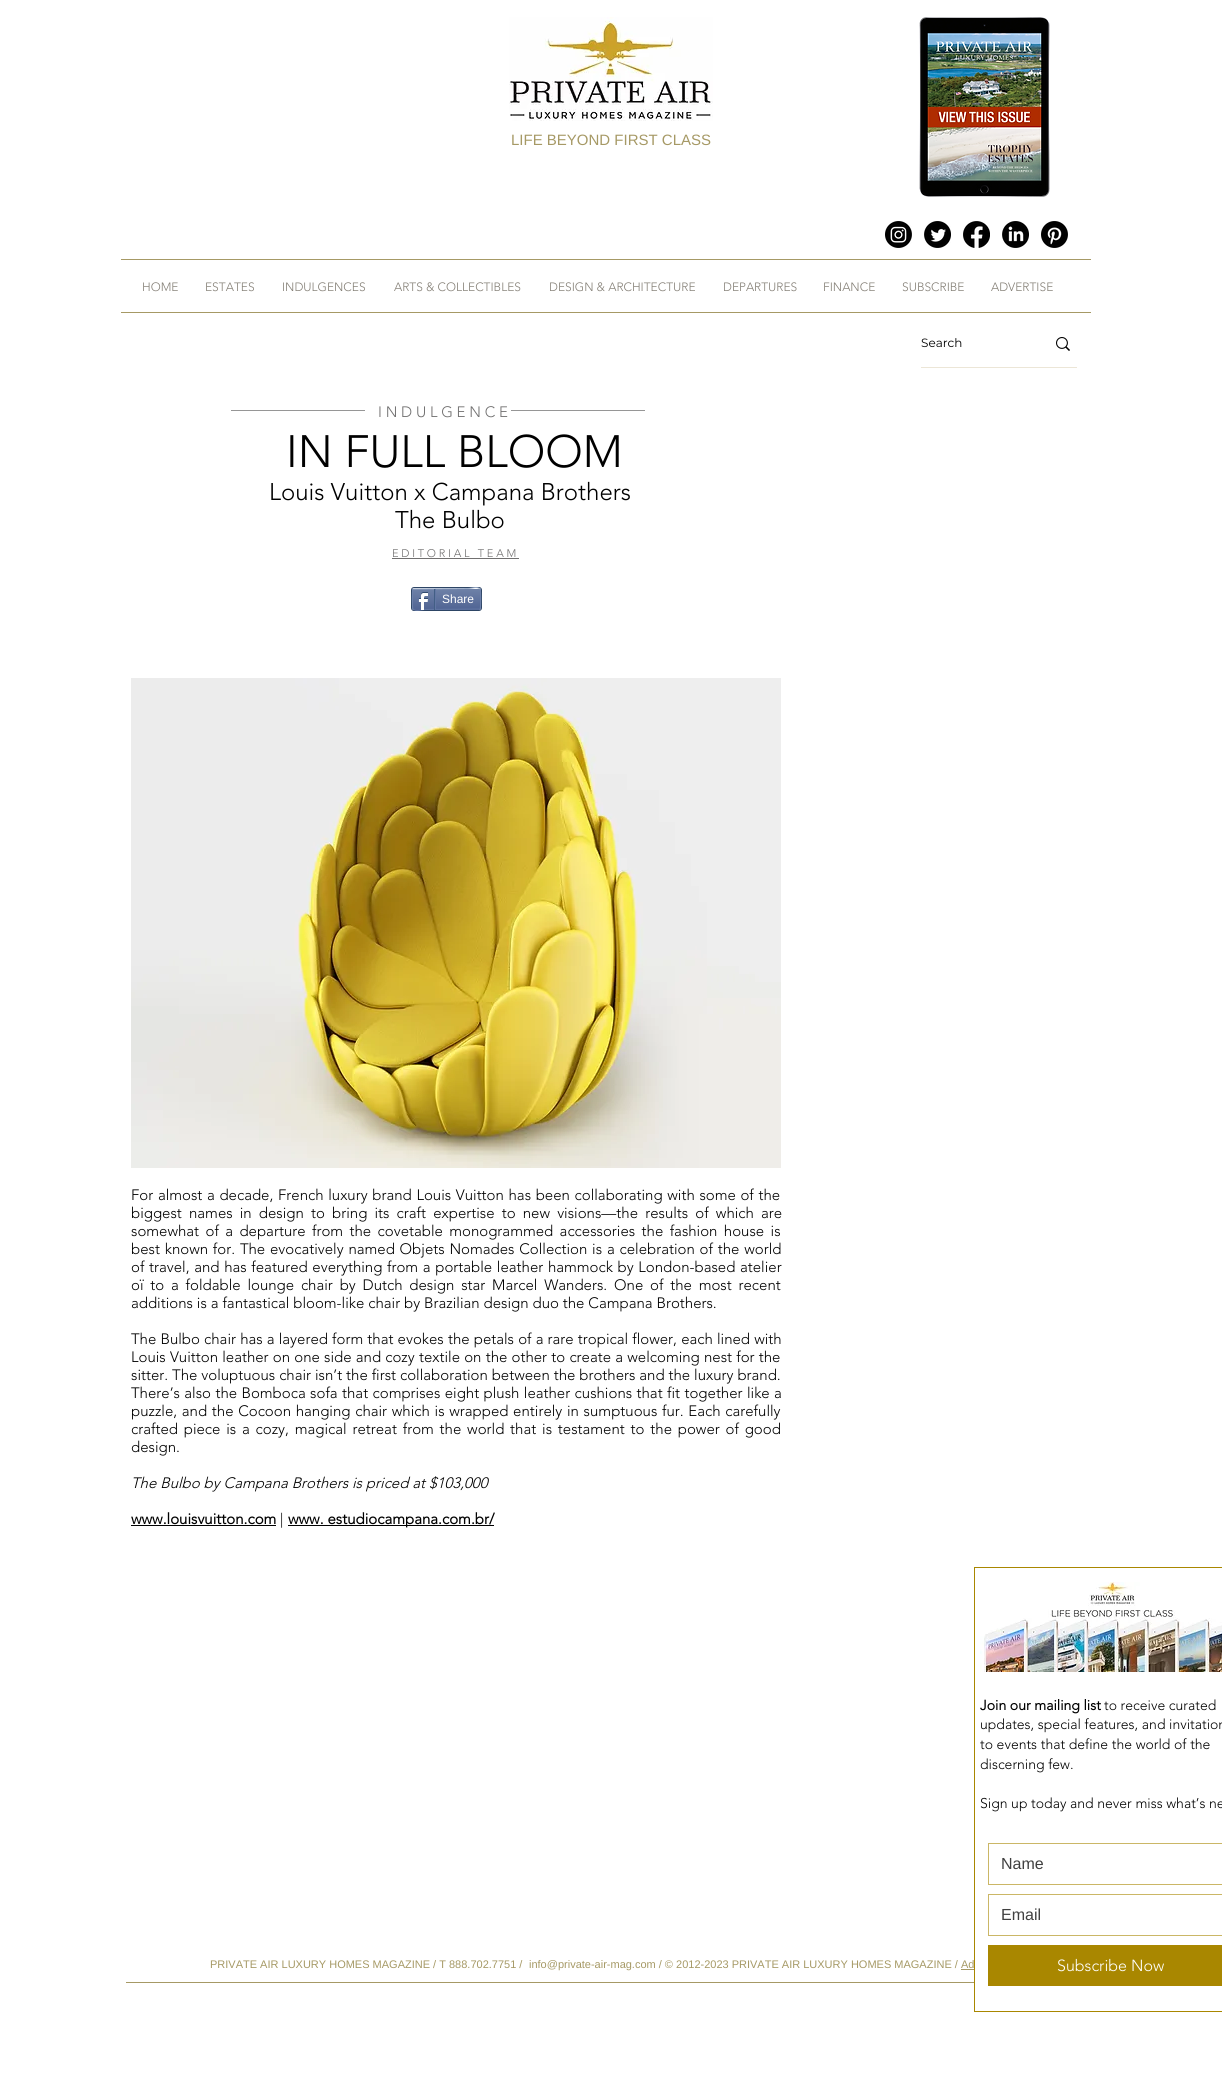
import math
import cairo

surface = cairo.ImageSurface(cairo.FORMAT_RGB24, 1222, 2082)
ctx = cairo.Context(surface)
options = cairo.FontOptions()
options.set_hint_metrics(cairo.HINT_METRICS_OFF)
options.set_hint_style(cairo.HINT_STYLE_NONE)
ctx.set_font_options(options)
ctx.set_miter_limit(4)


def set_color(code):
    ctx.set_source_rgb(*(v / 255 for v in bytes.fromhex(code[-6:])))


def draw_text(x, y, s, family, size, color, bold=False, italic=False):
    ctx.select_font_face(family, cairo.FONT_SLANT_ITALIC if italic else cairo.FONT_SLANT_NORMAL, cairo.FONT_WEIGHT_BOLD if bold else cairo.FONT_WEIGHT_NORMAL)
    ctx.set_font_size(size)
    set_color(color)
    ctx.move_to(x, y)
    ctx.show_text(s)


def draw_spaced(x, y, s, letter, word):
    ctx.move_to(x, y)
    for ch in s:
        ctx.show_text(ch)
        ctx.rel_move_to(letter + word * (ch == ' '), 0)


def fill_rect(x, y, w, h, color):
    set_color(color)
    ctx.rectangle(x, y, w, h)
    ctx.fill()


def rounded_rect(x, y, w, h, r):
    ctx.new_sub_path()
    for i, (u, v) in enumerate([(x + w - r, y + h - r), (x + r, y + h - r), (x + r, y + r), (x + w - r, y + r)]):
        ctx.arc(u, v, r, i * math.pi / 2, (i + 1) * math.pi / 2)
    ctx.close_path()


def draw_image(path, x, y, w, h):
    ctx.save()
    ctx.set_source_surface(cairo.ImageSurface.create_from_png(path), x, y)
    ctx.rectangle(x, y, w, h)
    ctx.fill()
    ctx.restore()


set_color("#ffffff")
ctx.paint()
draw_image("assets/img1.png", 509, 17, 204, 104)
draw_image("assets/img2.png", 919, 17, 131, 180)
draw_text(511, 145, "LIFE BEYOND FIRST CLASS", "Liberation Sans", 15, "#a69965")
draw_image("assets/img3.png", 885, 221, 27, 27)
draw_image("assets/img4.png", 924, 221, 27, 27)
draw_image("assets/img5.png", 963, 221, 27, 27)
draw_image("assets/img6.png", 1002, 221, 27, 27)
draw_image("assets/img7.png", 1041, 221, 27, 27)
fill_rect(121, 259, 970, 1, "#a69965")
draw_text(142, 291, "HOME", "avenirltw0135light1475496 Light", 12, "#847f76")
draw_text(205, 291, "ESTATES", "avenirltw0135light1475496 Light", 12, "#847f76")
draw_text(282, 291, "INDULGENCES", "avenirltw0135light1475496 Light", 12, "#847f76")
draw_text(394, 291, "ARTS & COLLECTIBLES", "avenirltw0135light1475496 Light", 12, "#847f76")
draw_text(549, 291, "DESIGN & ARCHITECTURE", "avenirltw0135light1475496 Light", 12, "#847f76")
draw_text(723, 291, "DEPARTURES", "avenirltw0135light1475496 Light", 12, "#847f76")
draw_text(823, 291, "FINANCE", "avenirltw0135light1475496 Light", 12, "#847f76")
draw_text(902, 291, "SUBSCRIBE", "avenirltw0135light1475496 Light", 12, "#847f76")
draw_text(991, 291, "ADVERTISE", "avenirltw0135light1475496 Light", 12, "#847f76")
fill_rect(121, 312, 970, 1, "#a69965")
fill_rect(921, 367, 156, 1, "#ece6d7")
draw_text(921, 347, "Search", "Montserrat", 12, "#000000")
draw_image("assets/img8.png", 1056, 337, 14, 14)
fill_rect(231, 410, 134, 1, "#969696")
ctx.select_font_face("avenirltw0135light1475496 Light")
ctx.set_font_size(15)
set_color("#717070")
draw_spaced(378, 417, "INDULGENCE", 3.75, 0)
fill_rect(511, 410, 134, 1, "#969696")
draw_text(286, 467, "IN FULL BLOOM", "avenirltw0135light1475496 Light", 45, "#000000")
draw_text(269, 500, "Louis Vuitton x Campana Brothers", "avenirltw0135light1475496 Light", 24, "#000000")
draw_text(395, 528, "The Bulbo", "avenirltw0135light1475496 Light", 24, "#000000")
ctx.set_font_size(11)
set_color("#717070")
draw_spaced(392, 557, "EDITORIAL TEAM", 2.75, 0)
fill_rect(392, 558, 127, 1, "#717070")
rounded_rect(411.5, 587.5, 70, 23, 2.5)
set_color("#2d4565")
ctx.set_line_width(1)
ctx.stroke()
draw_image("assets/img9.png", 412, 589, 69, 21)
ctx.new_path()
ctx.move_to(413, 589)
ctx.line_to(468, 588.5)
ctx.curve_to(472, 588.5, 477, 586, 480, 589)
set_color("#9aabc6")
ctx.stroke()
ctx.new_path()
ctx.move_to(480, 589)
ctx.curve_to(481, 589.5, 481, 608.5, 480, 609)
set_color("#6f83ad")
ctx.stroke()
ctx.new_path()
ctx.move_to(480, 609)
ctx.line_to(425, 609.5)
ctx.curve_to(421, 609.5, 416, 612, 413, 609)
set_color("#6176a3")
ctx.stroke()
ctx.new_path()
ctx.move_to(413, 609)
ctx.curve_to(412, 608.5, 412, 589.5, 413, 589)
set_color("#6f83ad")
ctx.stroke()
draw_image("assets/img10.png", 418, 592, 10, 18)
fill_rect(434, 589, 1, 21, "#425e85")
draw_text(442, 603, "Share", "Liberation Sans", 12, "#ffffff")
fill_rect(435, 589, 1, 20, "#6176a3")
draw_image("assets/img11.png", 131, 678, 650, 490)
ctx.select_font_face("avenirltw0135light1475496 Light")
ctx.set_font_size(15)
set_color("#000000")
draw_spaced(131, 1200, "For almost a decade, French luxury brand Louis Vuitton has been collaborating with some of the", 0, 0.75)
draw_spaced(131, 1218, "biggest names in design to bring its craft expertise to new visions—the results of which are", 0, 3.25)
draw_spaced(131, 1236, "somewhat of a departure from the covetable monogrammed accessories the fashion house is", 0, 2.5)
draw_spaced(131, 1254, "best known for. The evocatively named Objets Nomades Collection is a celebration of the world", 0, 0.9)
draw_spaced(131, 1272, "of travel, and has featured everything from a portable leather hammock by London-based atelier", 0, 0.75)
draw_spaced(131, 1290, "oï to a foldable lounge chair by Dutch design star Marcel Wanders. One of the most recent", 0, 2.9)
draw_text(131, 1308, "additions is a fantastical bloom-like chair by Brazilian design duo the Campana Brothers.", "avenirltw0135light1475496 Light", 15, "#000000")
draw_spaced(131, 1344, "The Bulbo chair has a layered form that evokes the petals of a rare tropical flower, each lined with", 0, 0.25)
draw_spaced(131, 1362, "Louis Vuitton leather on one side and cozy textile on the other to create a welcoming nest for the", 0, 0.3)
draw_text(131, 1380, "sitter. The voluptuous chair isn’t the first collaboration between the brothers and the luxury brand.", "avenirltw0135light1475496 Light", 15, "#000000")
draw_spaced(131, 1398, "There’s also the Bomboca sofa that comprises eight plush leather cushions that fit together like a", 0, 0.5)
draw_spaced(131, 1416, "puzzle, and the Cocoon hanging chair which is wrapped entirely in sumptuous fur. Each carefully", 0, 0.8)
draw_spaced(131, 1434, "crafted piece is a cozy, magical retreat from the world that is testament to the power of good", 0, 1.9)
draw_text(131, 1452, "design.", "avenirltw0135light1475496 Light", 15, "#000000")
draw_text(131, 1488, "The Bulbo by Campana Brothers is priced at $103,000", "avenirltw0135light1475496 Light", 15, "#000000", italic=True)
draw_text(131, 1524, "www.louisvuitton.com", "avenirltw0135light1475496", 15, "#000000", bold=True)
fill_rect(131, 1525, 145, 1, "#000000")
draw_text(280, 1524, "|", "avenirltw0135light1475496 Light", 15, "#000000")
fill_rect(288, 1525, 206, 1, "#000000")
draw_text(288, 1524, "www. estudiocampana.com.br/", "avenirltw0135light1475496", 15, "#000000", bold=True)
draw_text(210, 1968, "PRIVATE AIR LUXURY HOMES MAGAZINE / T 888.702.7751 /", "Liberation Sans", 11, "#a69965")
draw_text(529, 1968, "info@private-air-mag.com / © 2012-2023 PRIVATE AIR LUXURY HOMES MAGAZINE / Ad", "Liberation Sans", 11, "#a69965")
fill_rect(961, 1969, 13, 1, "#a69965")
fill_rect(126, 1982, 848, 1, "#a69965")
ctx.rectangle(974.5, 1567.5, 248, 444)
set_color("#a98700")
ctx.stroke()
draw_image("assets/img12.png", 980, 1582, 242, 90)
draw_text(980, 1710, "Join our mailing list", "avenirltw0135light1475496", 14, "#000000", bold=True)
draw_text(1104, 1710, "to receive curated", "avenirltw0135light1475496 Light", 14, "#000000")
draw_text(980, 1729, "updates, special features, and invitation", "avenirltw0135light1475496 Light", 14, "#000000")
draw_text(980, 1749, "to events that define the world of the", "avenirltw0135light1475496 Light", 14, "#000000")
draw_text(980, 1769, "discerning few.", "avenirltw0135light1475496 Light", 14, "#000000")
draw_text(980, 1808, "Sign up today and never miss what’s ne", "avenirltw0135light1475496 Light", 14, "#000000")
ctx.rectangle(988.5, 1843.5, 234, 41)
set_color("#cbb766")
ctx.stroke()
draw_text(1001, 1869, "Name", "Liberation Sans", 16, "#404040")
ctx.rectangle(988.5, 1894.5, 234, 41)
set_color("#cbb766")
ctx.stroke()
draw_text(1001, 1920, "Email", "Liberation Sans", 16, "#404040")
fill_rect(988, 1945, 234, 41, "#a98700")
draw_text(1057, 1971, "Subscribe Now", "avenirltw0135light1475496 Light", 16, "#ffffff")
surface.write_to_png("output.png")
